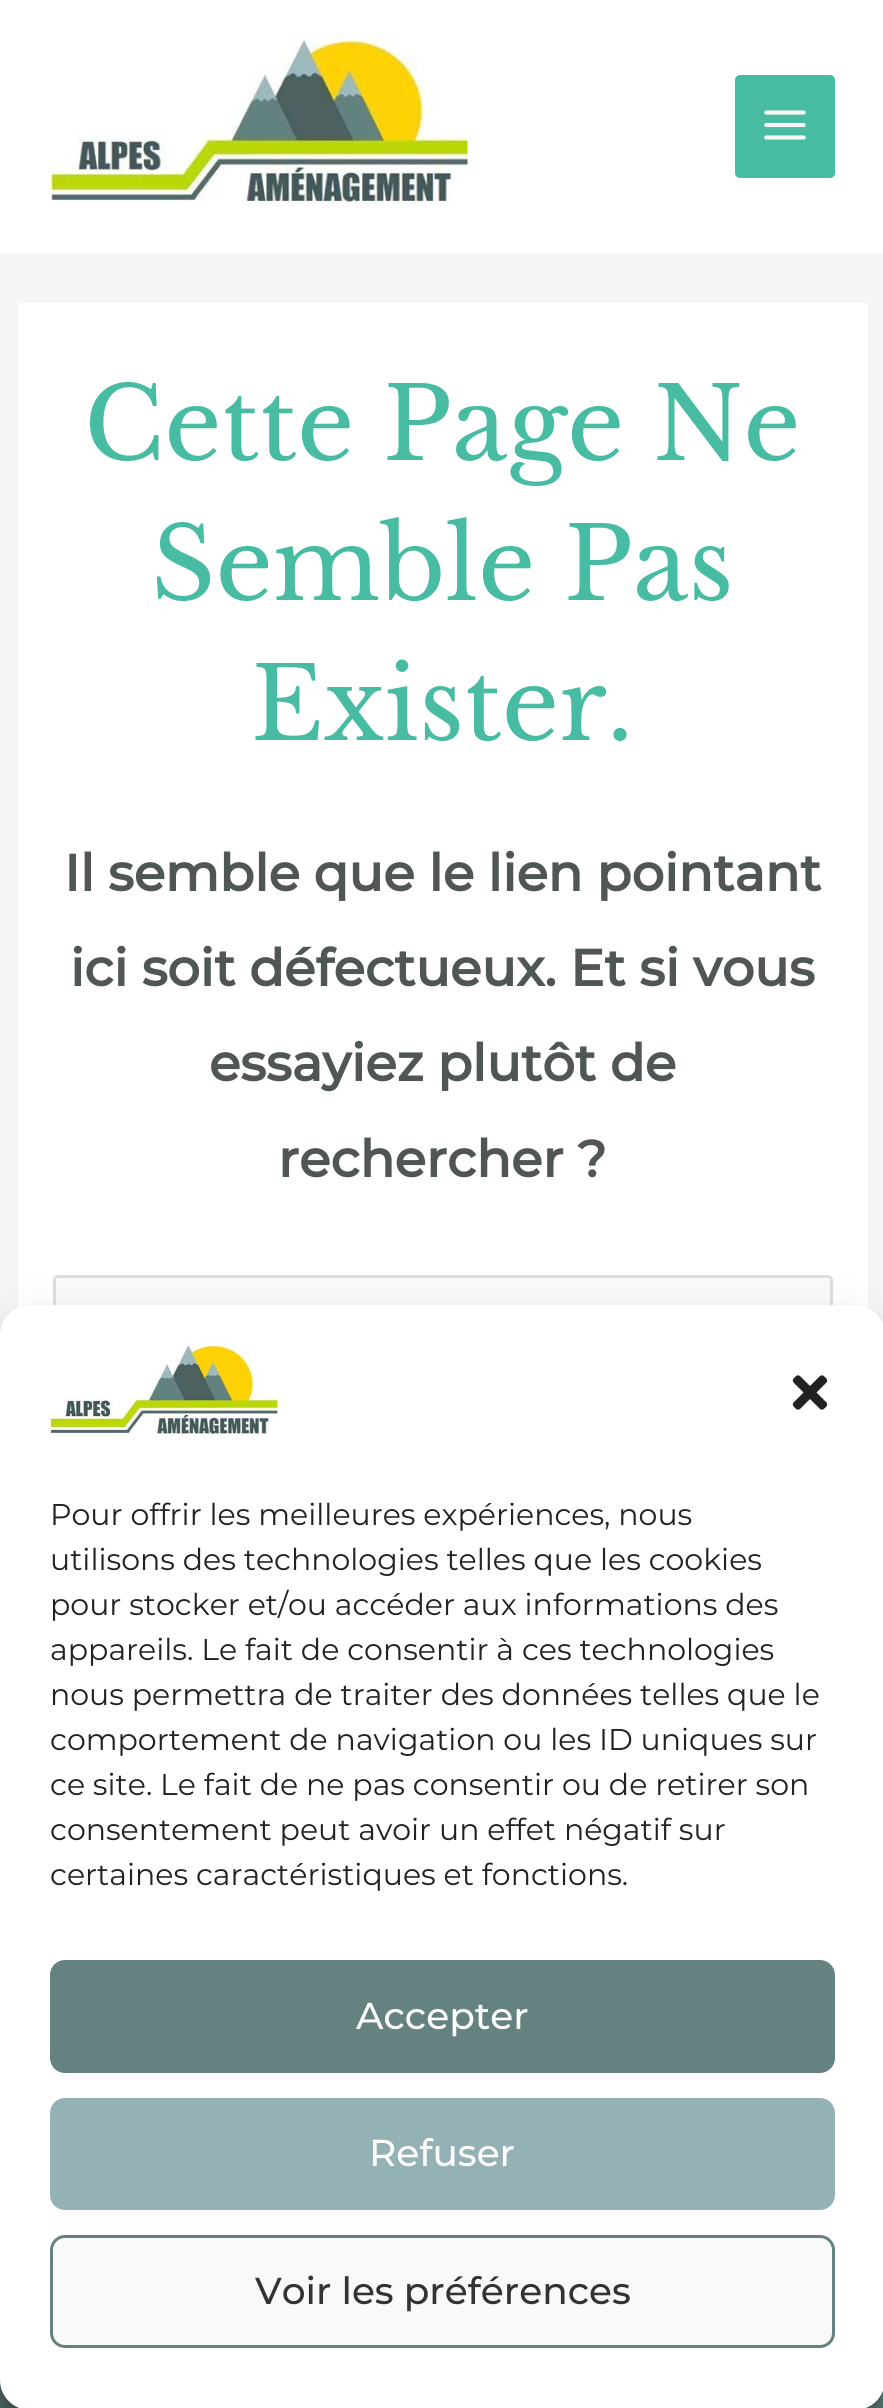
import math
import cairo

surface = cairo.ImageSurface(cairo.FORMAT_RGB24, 883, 2408)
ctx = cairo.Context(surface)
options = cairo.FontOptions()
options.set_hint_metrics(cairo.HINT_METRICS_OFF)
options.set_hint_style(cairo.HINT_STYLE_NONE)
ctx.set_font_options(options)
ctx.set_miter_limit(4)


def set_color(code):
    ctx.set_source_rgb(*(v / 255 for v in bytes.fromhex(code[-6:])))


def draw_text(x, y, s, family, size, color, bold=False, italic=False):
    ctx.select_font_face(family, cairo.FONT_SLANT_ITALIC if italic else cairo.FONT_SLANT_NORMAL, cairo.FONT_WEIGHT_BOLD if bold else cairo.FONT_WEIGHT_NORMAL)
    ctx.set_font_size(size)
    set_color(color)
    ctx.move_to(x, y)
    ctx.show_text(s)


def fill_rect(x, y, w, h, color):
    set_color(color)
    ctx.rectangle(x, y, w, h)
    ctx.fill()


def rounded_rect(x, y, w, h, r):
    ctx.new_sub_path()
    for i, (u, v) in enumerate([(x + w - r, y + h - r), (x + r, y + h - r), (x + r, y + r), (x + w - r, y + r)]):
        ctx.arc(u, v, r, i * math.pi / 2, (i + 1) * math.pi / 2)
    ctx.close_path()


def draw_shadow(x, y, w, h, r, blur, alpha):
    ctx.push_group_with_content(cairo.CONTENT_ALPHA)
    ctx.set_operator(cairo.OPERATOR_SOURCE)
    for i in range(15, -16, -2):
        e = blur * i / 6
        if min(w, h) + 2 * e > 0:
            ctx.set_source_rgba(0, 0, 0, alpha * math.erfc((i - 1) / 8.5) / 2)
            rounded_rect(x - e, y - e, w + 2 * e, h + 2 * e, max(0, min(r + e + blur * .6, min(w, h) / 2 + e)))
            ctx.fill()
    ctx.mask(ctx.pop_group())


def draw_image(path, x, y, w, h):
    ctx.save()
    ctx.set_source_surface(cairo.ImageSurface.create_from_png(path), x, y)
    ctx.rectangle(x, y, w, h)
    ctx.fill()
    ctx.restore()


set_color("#f3f6f3")
ctx.paint()
fill_rect(0, 0, 883, 253, "#ffffff")
draw_image("assets/img1.png", 50, 35, 418, 174)
set_color("#48bca2")
rounded_rect(735, 75, 100, 103, 5)
ctx.fill()
draw_image("assets/img2.png", 764, 110, 42, 30)
fill_rect(18, 303, 850, 1005, "#ffffff")
draw_text(84, 460, "Cette Page Ne", "Libre Baskerville", 100, "#48bca2")
draw_text(151, 600, "Semble Pas", "Libre Baskerville", 100, "#48bca2")
draw_text(251, 740, "Exister.", "Libre Baskerville", 100, "#48bca2")
draw_text(64, 891, "Il semble que le lien pointant", "Montserrat", 51.25, "#4f5655", bold=True)
draw_text(70, 986, "ici soit défectueux. Et si vous", "Montserrat", 51.25, "#4f5655", bold=True)
draw_text(209, 1081, "essayiez plutôt de", "Montserrat", 51.25, "#4f5655", bold=True)
draw_text(278, 1177, "rechercher ?", "Montserrat", 51.25, "#4f5655", bold=True)
set_color("#fafafa")
rounded_rect(54.5, 1276.5, 777, 102, 3.5)
ctx.fill_preserve()
set_color("#dddddd")
ctx.set_line_width(3)
ctx.stroke()
fill_rect(0, 2380, 20, 28, "#556d6c")
set_color("#638280")
ctx.new_path()
ctx.move_to(-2, 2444)
ctx.line_to(-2, 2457)
ctx.line_to(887, 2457)
ctx.line_to(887, 2232)
ctx.close_path()
ctx.fill()
set_color("#000000")
draw_shadow(0, 1320, 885, 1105, 30, 7.5, 0.23)
draw_shadow(0, 1330, 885, 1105, 30, 25, 0.19)
set_color("#ffffff")
rounded_rect(0, 1305, 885, 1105, 30)
ctx.fill()
draw_image("assets/img3.png", 50, 1342, 228, 95)
draw_image("assets/img4.png", 792, 1375, 36, 35)
draw_text(50, 1525, "Pour offrir les meilleures expériences, nous", "Montserrat", 30, "#222222")
draw_text(50, 1570, "utilisons des technologies telles que les cookies", "Montserrat", 30, "#222222")
draw_text(50, 1615, "pour stocker et/ou accéder aux informations des", "Montserrat", 30, "#222222")
draw_text(50, 1660, "appareils. Le fait de consentir à ces technologies", "Montserrat", 30, "#222222")
draw_text(50, 1705, "nous permettra de traiter des données telles que le", "Montserrat", 30, "#222222")
draw_text(50, 1750, "comportement de navigation ou les ID uniques sur", "Montserrat", 30, "#222222")
draw_text(50, 1795, "ce site. Le fait de ne pas consentir ou de retirer son", "Montserrat", 30, "#222222")
draw_text(50, 1840, "consentement peut avoir un effet négatif sur", "Montserrat", 30, "#222222")
draw_text(50, 1885, "certaines caractéristiques et fonctions.", "Montserrat", 30, "#222222")
set_color("#638280")
rounded_rect(51.5, 1961.5, 782, 110, 13.5)
ctx.fill_preserve()
ctx.stroke()
draw_text(356, 2029, "Accepter", "Montserrat Medium", 37.5, "#ffffff")
set_color("#94b1b6")
rounded_rect(51.5, 2099.5, 782, 109, 13.5)
ctx.fill_preserve()
ctx.stroke()
draw_text(369, 2166, "Refuser", "Montserrat Medium", 37.5, "#ffffff")
set_color("#f9f9f9")
rounded_rect(51.5, 2236.5, 782, 110, 13.5)
ctx.fill_preserve()
set_color("#638280")
ctx.stroke()
draw_text(255, 2304, "Voir les préférences", "Montserrat Medium", 37.5, "#333333")
surface.write_to_png("output.png")
